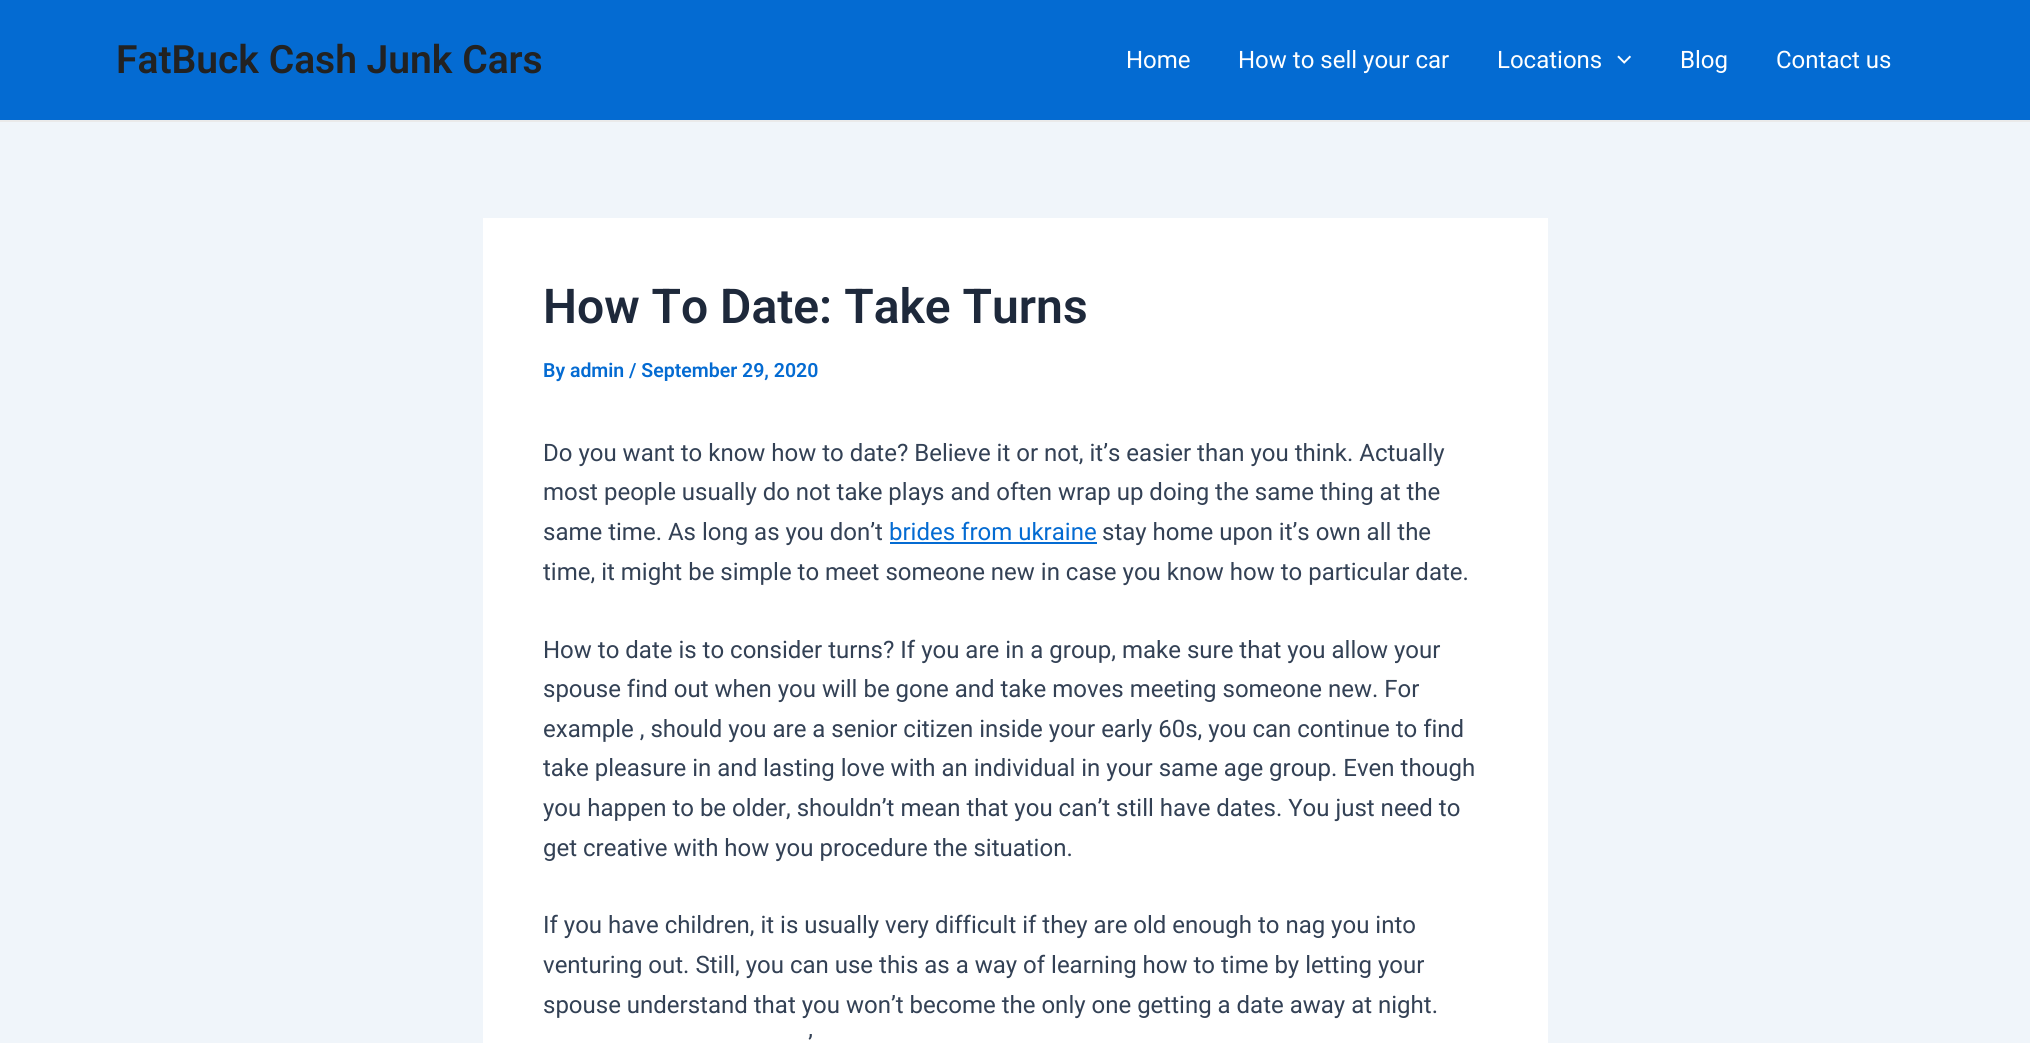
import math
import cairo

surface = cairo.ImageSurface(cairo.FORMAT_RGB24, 2030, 1043)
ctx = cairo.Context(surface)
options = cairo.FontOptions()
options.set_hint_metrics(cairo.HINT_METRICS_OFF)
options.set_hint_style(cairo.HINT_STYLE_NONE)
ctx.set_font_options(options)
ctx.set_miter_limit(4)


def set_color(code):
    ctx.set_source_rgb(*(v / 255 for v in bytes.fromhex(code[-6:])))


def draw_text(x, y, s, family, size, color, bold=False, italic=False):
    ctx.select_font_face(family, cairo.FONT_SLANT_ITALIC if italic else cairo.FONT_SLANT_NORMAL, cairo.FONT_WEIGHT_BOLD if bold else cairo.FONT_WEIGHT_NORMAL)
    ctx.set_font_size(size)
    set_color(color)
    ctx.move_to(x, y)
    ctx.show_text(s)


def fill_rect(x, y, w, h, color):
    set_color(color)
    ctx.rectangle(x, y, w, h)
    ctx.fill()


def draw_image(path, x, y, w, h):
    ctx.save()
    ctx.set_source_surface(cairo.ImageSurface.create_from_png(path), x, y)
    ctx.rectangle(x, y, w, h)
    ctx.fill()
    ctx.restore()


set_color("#f0f5fa")
ctx.paint()
fill_rect(0, 0, 2030, 120, "#046bd2")
fill_rect(0, 120, 2030, 2, "#eaeaea")
draw_text(116, 73, "FatBuck Cash Junk Cars", "Roboto SemiBold", 39, "#222222")
draw_text(1126, 68, "Home", "Roboto", 24, "#ffffff")
draw_text(1238, 68, "How to sell your car", "Roboto", 24, "#ffffff")
draw_text(1497, 68, "Locations", "Roboto", 24, "#ffffff")
draw_image("assets/img1.png", 1617, 55, 14, 9)
draw_text(1680, 68, "Blog", "Roboto", 24, "#ffffff")
draw_text(1776, 68, "Contact us", "Roboto", 24, "#ffffff")
fill_rect(483, 218, 1065, 825, "#ffffff")
draw_text(543, 323, "How To Date: Take Turns", "Roboto SemiBold", 48, "#1e293b")
draw_text(543, 377, "By admin / September 29, 2020", "Roboto SemiBold", 19.5, "#046bd2")
draw_text(543, 461, "Do you want to know how to date? Believe it or not, it’s easier than you think. Actually", "Roboto", 24, "#334155")
draw_text(543, 500, "most people usually do not take plays and often wrap up doing the same thing at the", "Roboto", 24, "#334155")
draw_text(543, 540, "same time. As long as you don’t", "Roboto", 24, "#334155")
draw_text(889, 540, "brides from ukraine", "Roboto", 24, "#046bd2")
fill_rect(890, 542, 207, 2, "#046bd2")
draw_text(1102, 540, "stay home upon it’s own all the", "Roboto", 24, "#334155")
draw_text(543, 580, "time, it might be simple to meet someone new in case you know how to particular date.", "Roboto", 24, "#334155")
draw_text(543, 658, "How to date is to consider turns? If you are in a group, make sure that you allow your", "Roboto", 24, "#334155")
draw_text(543, 697, "spouse find out when you will be gone and take moves meeting someone new. For", "Roboto", 24, "#334155")
draw_text(543, 737, "example , should you are a senior citizen inside your early 60s, you can continue to find", "Roboto", 24, "#334155")
draw_text(543, 776, "take pleasure in and lasting love with an individual in your same age group. Even though", "Roboto", 24, "#334155")
draw_text(543, 816, "you happen to be older, shouldn’t mean that you can’t still have dates. You just need to", "Roboto", 24, "#334155")
draw_text(543, 856, "get creative with how you procedure the situation.", "Roboto", 24, "#334155")
draw_text(543, 933, "If you have children, it is usually very difficult if they are old enough to nag you into", "Roboto", 24, "#334155")
draw_text(543, 973, "venturing out. Still, you can use this as a way of learning how to time by letting your", "Roboto", 24, "#334155")
draw_text(543, 1013, "spouse understand that you won’t become the only one getting a date away at night.", "Roboto", 24, "#334155")
draw_text(808, 1052, "’", "Roboto", 24, "#334155")
surface.write_to_png("output.png")
